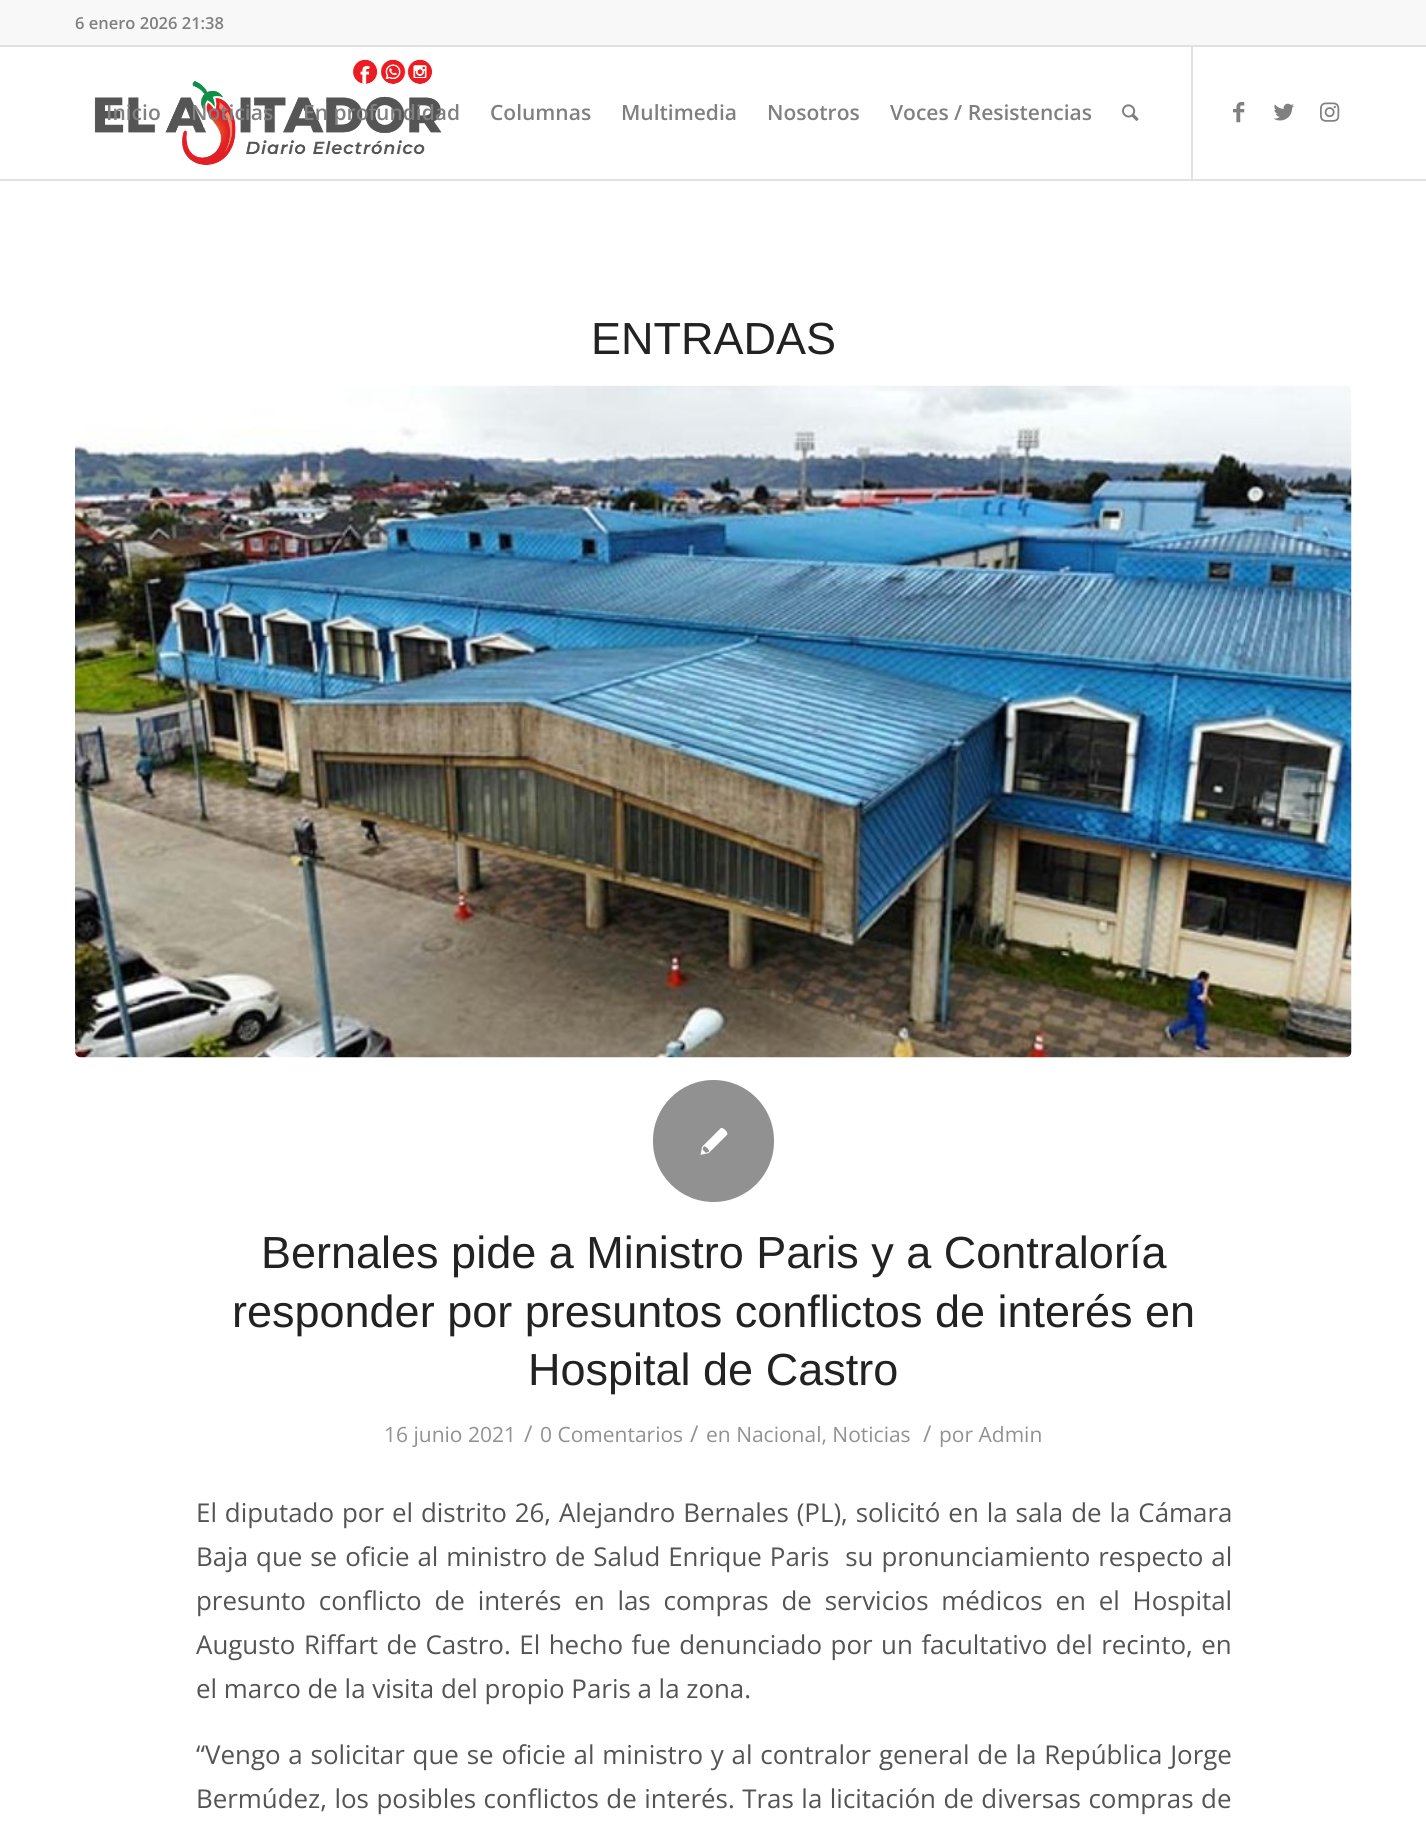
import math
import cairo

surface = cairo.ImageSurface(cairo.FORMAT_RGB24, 1426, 1843)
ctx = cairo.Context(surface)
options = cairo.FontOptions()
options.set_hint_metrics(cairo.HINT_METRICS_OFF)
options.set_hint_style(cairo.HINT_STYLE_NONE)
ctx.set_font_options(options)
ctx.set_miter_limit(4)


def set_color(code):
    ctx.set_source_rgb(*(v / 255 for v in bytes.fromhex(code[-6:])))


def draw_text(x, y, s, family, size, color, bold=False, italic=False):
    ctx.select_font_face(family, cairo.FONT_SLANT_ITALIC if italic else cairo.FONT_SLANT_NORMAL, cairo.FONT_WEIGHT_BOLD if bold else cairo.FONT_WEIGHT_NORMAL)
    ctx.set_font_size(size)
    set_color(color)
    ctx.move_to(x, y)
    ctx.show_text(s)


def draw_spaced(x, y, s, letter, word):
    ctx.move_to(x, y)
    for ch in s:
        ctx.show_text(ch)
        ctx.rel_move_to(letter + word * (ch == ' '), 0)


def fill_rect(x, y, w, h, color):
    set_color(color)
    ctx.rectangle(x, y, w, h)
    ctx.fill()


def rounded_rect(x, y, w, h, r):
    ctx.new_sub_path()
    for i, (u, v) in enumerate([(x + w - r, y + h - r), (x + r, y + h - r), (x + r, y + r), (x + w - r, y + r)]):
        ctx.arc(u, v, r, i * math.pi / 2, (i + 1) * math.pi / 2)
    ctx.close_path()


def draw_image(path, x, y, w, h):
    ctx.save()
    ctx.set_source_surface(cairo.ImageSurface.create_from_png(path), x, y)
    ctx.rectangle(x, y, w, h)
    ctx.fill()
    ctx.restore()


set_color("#ffffff")
ctx.paint()
fill_rect(0, 0, 1426, 45, "#f8f8f8")
fill_rect(0, 45, 1426, 2, "#e1e1e1")
draw_text(75, 29, "6 enero 2026 21:38", "Open Sans SemiBold", 16.5, "#808080")
fill_rect(0, 179, 1426, 2, "#e1e1e1")
draw_image("assets/img1.png", 94, 59, 348, 106)
fill_rect(1191, 47, 2, 132, "#e1e1e1")
draw_text(106, 120, "Inicio", "Open Sans SemiBold", 21, "#808080")
draw_text(191, 120, "Noticias", "Open Sans SemiBold", 21, "#808080")
draw_text(303, 120, "En profundidad", "Open Sans SemiBold", 21, "#808080")
draw_text(490, 120, "Columnas", "Open Sans SemiBold", 21, "#808080")
draw_text(621, 120, "Multimedia", "Open Sans SemiBold", 21, "#808080")
draw_text(767, 120, "Nosotros", "Open Sans SemiBold", 21, "#808080")
draw_text(890, 120, "Voces / Resistencias", "Open Sans SemiBold", 21, "#808080")
draw_image("assets/img2.png", 1122, 104, 17, 17)
draw_image("assets/img3.png", 1233, 102, 12, 21)
draw_image("assets/img4.png", 1273, 103, 21, 18)
draw_image("assets/img5.png", 1320, 102, 20, 20)
draw_text(591, 354, "ENTRADAS", "Liberation Sans", 45, "#222222")
draw_image("assets/img6.png", 75, 385, 1277, 673)
set_color("#919191")
rounded_rect(653, 1080, 121, 122, 60.5)
ctx.fill()
draw_image("assets/img7.png", 700, 1127, 28, 28)
draw_text(261, 1268, "Bernales pide a Ministro Paris y a Contraloría", "Liberation Sans", 45, "#222222")
draw_text(232, 1327, "responder por presuntos conflictos de interés en", "Liberation Sans", 45, "#222222")
draw_text(528, 1385, "Hospital de Castro", "Liberation Sans", 45, "#222222")
draw_text(384, 1442, "16 junio 2021", "Open Sans", 21, "#919191")
draw_text(524, 1442, "/", "Open Sans", 23, "#919191")
draw_text(540, 1442, "0 Comentarios", "Open Sans", 21, "#919191")
draw_text(690, 1442, "/", "Open Sans", 23, "#919191")
draw_text(706, 1442, "en Nacional, Noticias", "Open Sans", 21, "#919191")
draw_text(923, 1442, "/", "Open Sans", 23, "#919191")
draw_text(939, 1442, "por Admin", "Open Sans", 21, "#919191")
ctx.set_font_size(25.9)
set_color("#545454")
draw_spaced(196, 1522, "El diputado por el distrito 26, Alejandro Bernales (PL), solicitó en la sala de la Cámara", 0, 1.2)
draw_spaced(196, 1566, "Baja que se oficie al ministro de Salud Enrique Paris  su pronunciamiento respecto al", 0, 1.25)
draw_spaced(196, 1610, "presunto conflicto de interés en las compras de servicios médicos en el Hospital", 0, 6.1)
draw_spaced(196, 1654, "Augusto Riffart de Castro. El hecho fue denunciado por un facultativo del recinto, en", 0, 1.8)
draw_text(196, 1698, "el marco de la visita del propio Paris a la zona.", "Open Sans", 25.9, "#545454")
draw_spaced(196, 1764, "“Vengo a solicitar que se oficie al ministro y al contralor general de la República Jorge", 0, 1.1)
draw_spaced(196, 1808, "Bermúdez, los posibles conflictos de interés. Tras la licitación de diversas compras de", 0, 0.8)
surface.write_to_png("output.png")
